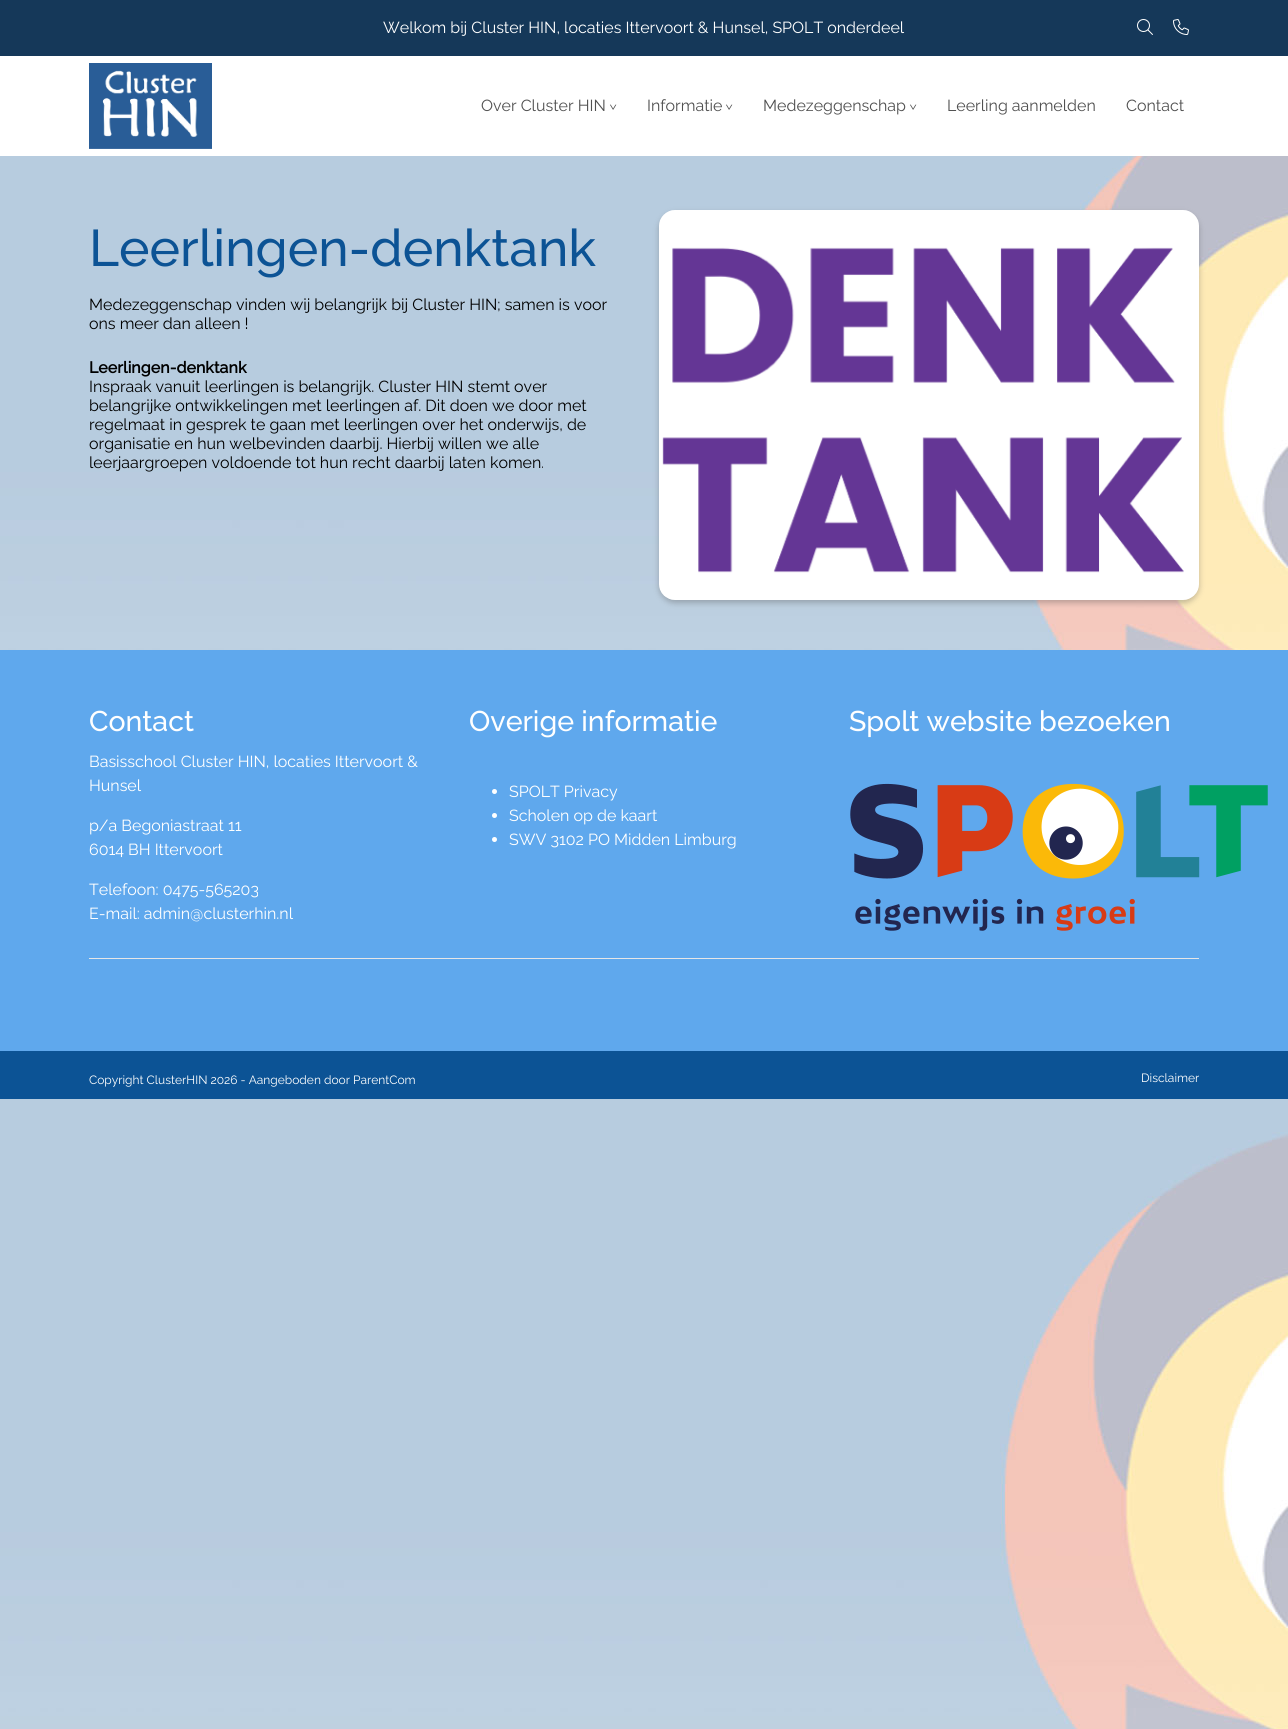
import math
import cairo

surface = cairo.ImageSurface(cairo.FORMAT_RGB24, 1288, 1729)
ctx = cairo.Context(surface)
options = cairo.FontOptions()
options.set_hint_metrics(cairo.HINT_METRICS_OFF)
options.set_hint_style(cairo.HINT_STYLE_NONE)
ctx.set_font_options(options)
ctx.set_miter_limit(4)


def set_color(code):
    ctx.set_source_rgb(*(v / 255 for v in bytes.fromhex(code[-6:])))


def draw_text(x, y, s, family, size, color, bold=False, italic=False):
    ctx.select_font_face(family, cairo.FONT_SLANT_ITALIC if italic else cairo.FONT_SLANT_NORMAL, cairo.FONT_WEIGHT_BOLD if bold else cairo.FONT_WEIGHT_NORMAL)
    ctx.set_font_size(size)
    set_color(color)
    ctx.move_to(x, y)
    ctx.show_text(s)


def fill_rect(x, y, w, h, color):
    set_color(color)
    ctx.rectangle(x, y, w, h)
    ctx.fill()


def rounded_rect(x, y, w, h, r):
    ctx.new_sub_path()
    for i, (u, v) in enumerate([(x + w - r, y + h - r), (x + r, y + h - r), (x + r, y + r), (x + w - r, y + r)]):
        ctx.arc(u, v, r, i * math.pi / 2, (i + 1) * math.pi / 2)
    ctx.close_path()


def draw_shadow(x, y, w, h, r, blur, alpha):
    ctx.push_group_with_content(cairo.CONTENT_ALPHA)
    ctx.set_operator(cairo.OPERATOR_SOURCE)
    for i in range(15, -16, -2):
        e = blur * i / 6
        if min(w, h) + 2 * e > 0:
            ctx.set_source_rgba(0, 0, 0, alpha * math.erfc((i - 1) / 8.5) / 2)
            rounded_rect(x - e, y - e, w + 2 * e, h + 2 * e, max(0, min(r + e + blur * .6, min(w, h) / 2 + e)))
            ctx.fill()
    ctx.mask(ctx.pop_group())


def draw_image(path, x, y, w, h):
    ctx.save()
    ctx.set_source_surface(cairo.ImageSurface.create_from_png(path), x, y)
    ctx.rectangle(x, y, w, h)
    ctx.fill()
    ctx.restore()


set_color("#ffffff")
ctx.paint()
draw_image("assets/img1.png", 0, 156, 1288, 1573)
fill_rect(0, 0, 1288, 56, "#153859")
draw_text(383, 33, "Welkom bij Cluster HIN, locaties Ittervoort & Hunsel, SPOLT onderdeel", "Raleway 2 Thin", 16, "#ffffff")
draw_image("assets/img2.png", 1137, 19, 16, 16)
draw_image("assets/img3.png", 1173, 19, 16, 16)
draw_image("assets/img4.png", 89, 63, 123, 86)
draw_text(481, 111, "Over Cluster HIN", "Raleway 2 Thin", 16, "#505050")
ctx.save()
ctx.translate(610, 104)
ctx.rotate(90 * math.pi / 180)
draw_text(0, 0, ">", "Raleway 2 Thin", 12, "#505050")
ctx.restore()
draw_text(647, 111, "Informatie", "Raleway 2 Thin", 16, "#505050")
ctx.save()
ctx.translate(726, 104)
ctx.rotate(90 * math.pi / 180)
draw_text(0, 0, ">", "Raleway 2 Thin", 12, "#505050")
ctx.restore()
draw_text(763, 111, "Medezeggenschap", "Raleway 2 Thin", 16, "#505050")
ctx.save()
ctx.translate(910, 104)
ctx.rotate(90 * math.pi / 180)
draw_text(0, 0, ">", "Raleway 2 Thin", 12, "#505050")
ctx.restore()
draw_text(947, 111, "Leerling aanmelden", "Raleway 2 Thin", 16, "#505050")
draw_text(1126, 111, "Contact", "Raleway 2 Thin", 16, "#505050")
draw_text(89, 266, "Leerlingen-denktank", "Raleway Thin", 51.5, "#0c5395")
draw_text(89, 310, "Medezeggenschap vinden wij belangrijk bij Cluster HIN; samen is voor", "Raleway 2 Thin", 16, "#000000")
draw_text(89, 329, "ons meer dan alleen !", "Raleway 2 Thin", 16, "#000000")
draw_text(89, 373, "Leerlingen-denktank", "Raleway", 16, "#000000", bold=True)
draw_text(89, 392, "Inspraak vanuit leerlingen is belangrijk. Cluster HIN stemt over", "Raleway 2 Thin", 16, "#000000")
draw_text(89, 411, "belangrijke ontwikkelingen met leerlingen af. Dit doen we door met", "Raleway 2 Thin", 16, "#000000")
draw_text(89, 430, "regelmaat in gesprek te gaan met leerlingen over het onderwijs, de", "Raleway 2 Thin", 16, "#000000")
draw_text(89, 449, "organisatie en hun welbevinden daarbij. Hierbij willen we alle", "Raleway 2 Thin", 16, "#000000")
draw_text(89, 468, "leerjaargroepen voldoende tot hun recht daarbij laten komen.", "Raleway 2 Thin", 16, "#000000")
set_color("#505050")
draw_shadow(659, 213, 540, 390, 16, 3, 0.35)
draw_image("assets/img5.png", 659, 210, 540, 390)
fill_rect(0, 650, 1288, 401, "#5fa8ed")
draw_text(89, 731, "Contact", "Raleway Thin", 28.5, "#ffffff")
draw_text(89, 767, "Basisschool Cluster HIN, locaties Ittervoort &", "Raleway 2 Thin", 16, "#ffffff")
draw_text(89, 791, "Hunsel", "Raleway 2 Thin", 16, "#ffffff")
draw_text(89, 831, "p/a Begoniastraat 11", "Raleway 2 Thin", 16, "#ffffff")
draw_text(89, 855, "6014 BH Ittervoort", "Raleway 2 Thin", 16, "#ffffff")
draw_text(89, 895, "Telefoon: 0475-565203", "Raleway 2 Thin", 16, "#ffffff")
draw_text(89, 919, "E-mail: admin@clusterhin.nl", "Raleway 2 Thin", 16, "#ffffff")
draw_text(469, 731, "Overige informatie", "Raleway Thin", 28.5, "#ffffff")
ctx.new_path()
ctx.arc(494.5, 791.5, 2.5, 0, 2 * math.pi)
ctx.fill()
draw_text(509, 797, "SPOLT Privacy", "Raleway 2 Thin", 16, "#ffffff")
ctx.new_path()
ctx.arc(494.5, 815.5, 2.5, 0, 2 * math.pi)
ctx.fill()
draw_text(509, 821, "Scholen op de kaart", "Raleway 2 Thin", 16, "#ffffff")
ctx.new_path()
ctx.arc(494.5, 839.5, 2.5, 0, 2 * math.pi)
ctx.fill()
draw_text(509, 845, "SWV 3102 PO Midden Limburg", "Raleway 2 Thin", 16, "#ffffff")
draw_text(849, 731, "Spolt website bezoeken", "Raleway Thin", 28.5, "#ffffff")
draw_image("assets/img6.png", 850, 783, 418, 148)
fill_rect(89, 958, 1110, 1, "#e6e6e6")
fill_rect(0, 1051, 1288, 48, "#0c5395")
draw_text(89, 1084, "Copyright ClusterHIN 2026 - Aangeboden door ParentCom", "Raleway 2 Thin", 12, "#ffffff")
draw_text(1141, 1082, "Disclaimer", "Raleway 2 Thin", 12, "#ffffff")
surface.write_to_png("output.png")
